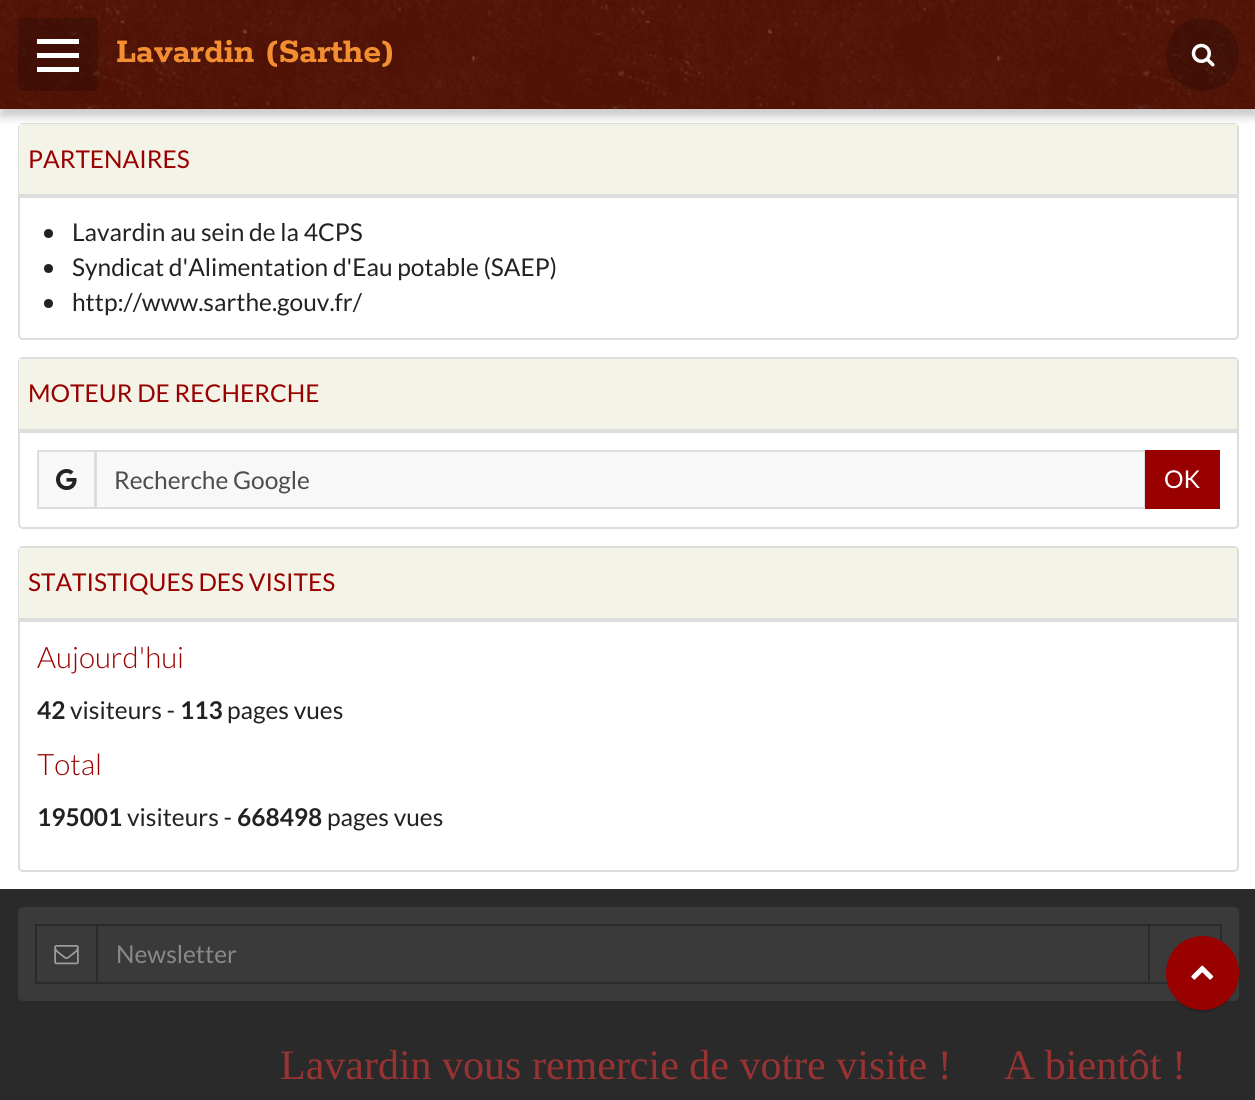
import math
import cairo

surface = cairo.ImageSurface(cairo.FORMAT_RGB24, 1255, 1100)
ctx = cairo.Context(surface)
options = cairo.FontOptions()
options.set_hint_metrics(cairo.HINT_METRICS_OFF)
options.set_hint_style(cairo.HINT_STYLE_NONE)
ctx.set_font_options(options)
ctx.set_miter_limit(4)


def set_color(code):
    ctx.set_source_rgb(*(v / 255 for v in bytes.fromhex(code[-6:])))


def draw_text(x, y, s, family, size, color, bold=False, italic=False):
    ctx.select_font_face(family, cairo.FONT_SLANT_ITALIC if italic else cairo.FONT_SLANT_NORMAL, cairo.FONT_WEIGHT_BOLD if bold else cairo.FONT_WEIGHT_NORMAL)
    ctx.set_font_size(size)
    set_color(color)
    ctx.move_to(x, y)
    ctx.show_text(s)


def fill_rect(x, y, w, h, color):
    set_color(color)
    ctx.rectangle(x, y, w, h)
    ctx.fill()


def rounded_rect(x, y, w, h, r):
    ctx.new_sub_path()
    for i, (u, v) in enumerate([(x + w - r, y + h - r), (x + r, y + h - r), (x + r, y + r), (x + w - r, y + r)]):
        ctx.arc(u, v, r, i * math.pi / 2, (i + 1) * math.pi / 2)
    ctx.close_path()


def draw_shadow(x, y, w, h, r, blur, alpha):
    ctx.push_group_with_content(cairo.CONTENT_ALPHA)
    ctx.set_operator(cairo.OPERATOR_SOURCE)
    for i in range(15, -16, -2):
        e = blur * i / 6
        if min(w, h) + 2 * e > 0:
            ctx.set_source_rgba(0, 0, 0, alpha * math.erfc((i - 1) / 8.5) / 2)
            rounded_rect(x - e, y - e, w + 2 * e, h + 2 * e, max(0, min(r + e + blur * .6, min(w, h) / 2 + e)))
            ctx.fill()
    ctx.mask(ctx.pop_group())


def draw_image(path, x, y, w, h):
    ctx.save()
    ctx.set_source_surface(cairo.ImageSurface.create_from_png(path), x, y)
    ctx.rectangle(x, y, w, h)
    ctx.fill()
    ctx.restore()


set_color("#2a2a2a")
ctx.paint()
fill_rect(0, 109, 1255, 780, "#ffffff")
rounded_rect(19, 124, 1219, 215, 4)
set_color("#dddddd")
ctx.stroke()
fill_rect(19, 124, 1218, 70, "#f4f3e8")
set_color("#000000")
draw_shadow(0, 9, 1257, 108, 0, 4.5, 0.2)
fill_rect(0, 0, 1255, 109, "#4d0d00")
draw_image("assets/img1.png", 0, 0, 1255, 109)
ctx.set_source_rgba(0, 0, 0, 0.2)
rounded_rect(18, 18, 80, 73, 4)
ctx.fill()
fill_rect(37, 53, 42, 5, "#ffffff")
fill_rect(37, 39, 42, 5, "#ffffff")
fill_rect(37, 67, 42, 5, "#ffffff")
draw_text(116, 62, "Lavardin (Sarthe)", "Rokkitt", 36.75, "#f38f31", bold=True)
ctx.set_source_rgba(0, 0, 0, 0.2)
ctx.new_path()
ctx.arc(1202.5, 54.5, 36.5, 0, 2 * math.pi)
ctx.fill()
draw_image("assets/img2.png", 1191, 43, 24, 24)
fill_rect(19, 194, 1218, 4, "#dddddd")
draw_text(28, 168, "PARTENAIRES", "Lato", 24.5, "#990000")
set_color("#222222")
ctx.new_path()
ctx.arc(48.5, 233.5, 4.5, 0, 2 * math.pi)
ctx.fill()
draw_text(72, 241, "Lavardin au sein de la 4CPS", "Lato", 24.5, "#222222")
ctx.new_path()
ctx.arc(48.5, 268.5, 4.5, 0, 2 * math.pi)
ctx.fill()
draw_text(72, 276, "Syndicat d'Alimentation d'Eau potable (SAEP)", "Lato", 24.5, "#222222")
ctx.new_path()
ctx.arc(48.5, 303.5, 4.5, 0, 2 * math.pi)
ctx.fill()
draw_text(72, 311, "http://www.sarthe.gouv.fr/", "Lato", 24.5, "#222222")
rounded_rect(19, 358, 1219, 170, 4)
set_color("#dddddd")
ctx.stroke()
fill_rect(19, 359, 1218, 70, "#f4f3e8")
fill_rect(19, 429, 1218, 4, "#dddddd")
draw_text(28, 402, "MOTEUR DE RECHERCHE", "Lato", 24.5, "#990000")
set_color("#f8f8f8")
ctx.rectangle(38, 451, 57, 57)
ctx.fill_preserve()
set_color("#dddddd")
ctx.stroke()
draw_image("assets/img3.png", 56, 469, 21, 21)
set_color("#f8f8f8")
ctx.rectangle(96, 451, 1049, 57)
ctx.fill_preserve()
set_color("#dddddd")
ctx.stroke()
draw_text(114, 489, "Recherche Google", "Lato", 24.5, "#4d4d4d")
fill_rect(1145, 450, 75, 59, "#990000")
draw_text(1164, 488, "OK", "Lato", 24.5, "#ffffff")
rounded_rect(19, 547, 1219, 324, 4)
set_color("#dddddd")
ctx.stroke()
fill_rect(19, 548, 1218, 70, "#f4f3e8")
fill_rect(19, 618, 1218, 4, "#dddddd")
draw_text(28, 591, "STATISTIQUES DES VISITES", "Lato", 24.5, "#990000")
draw_text(37, 668, "Aujourd'hui", "Lato Light", 29.5, "#990000")
draw_text(37, 719, "42", "Lato", 24.5, "#222222", bold=True)
draw_text(70, 719, "visiteurs -", "Lato", 24.5, "#222222")
draw_text(180, 719, "113", "Lato", 24.5, "#222222", bold=True)
draw_text(227, 719, "pages vues", "Lato", 24.5, "#222222")
draw_text(37, 775, "Total", "Lato Light", 29.5, "#990000")
draw_text(37, 826, "195001", "Lato", 24.5, "#222222", bold=True)
draw_text(127, 826, "visiteurs -", "Lato", 24.5, "#222222")
draw_text(237, 826, "668498", "Lato", 24.5, "#222222", bold=True)
draw_text(327, 826, "pages vues", "Lato", 24.5, "#222222")
set_color("#3a3a3a")
rounded_rect(18, 907, 1221, 94, 5)
ctx.fill()
ctx.rectangle(36, 925, 61, 58)
set_color("#2a2a2a")
ctx.stroke()
draw_image("assets/img4.png", 54, 945, 25, 20)
ctx.rectangle(97, 925, 1052, 58)
ctx.stroke()
draw_text(116, 963, "Newsletter", "Lato", 24.5, "#898989")
fill_rect(1148, 924, 74, 2, "#2a2a2a")
fill_rect(1220, 924, 2, 18, "#2a2a2a")
fill_rect(1148, 982, 20, 2, "#2a2a2a")
draw_text(280, 1079, "Lavardin vous remercie de votre visite !", "Liberation Serif", 42, "#993333")
draw_text(1004, 1079, "A bientôt !", "Liberation Serif", 42, "#993333")
set_color("#000000")
draw_shadow(1169, 945, 67, 67, 33.5, 1, 0.2)
set_color("#990000")
rounded_rect(1166, 936, 73, 74, 36.5)
ctx.fill()
draw_image("assets/img5.png", 1191, 965, 23, 15)
surface.write_to_png("output.png")
